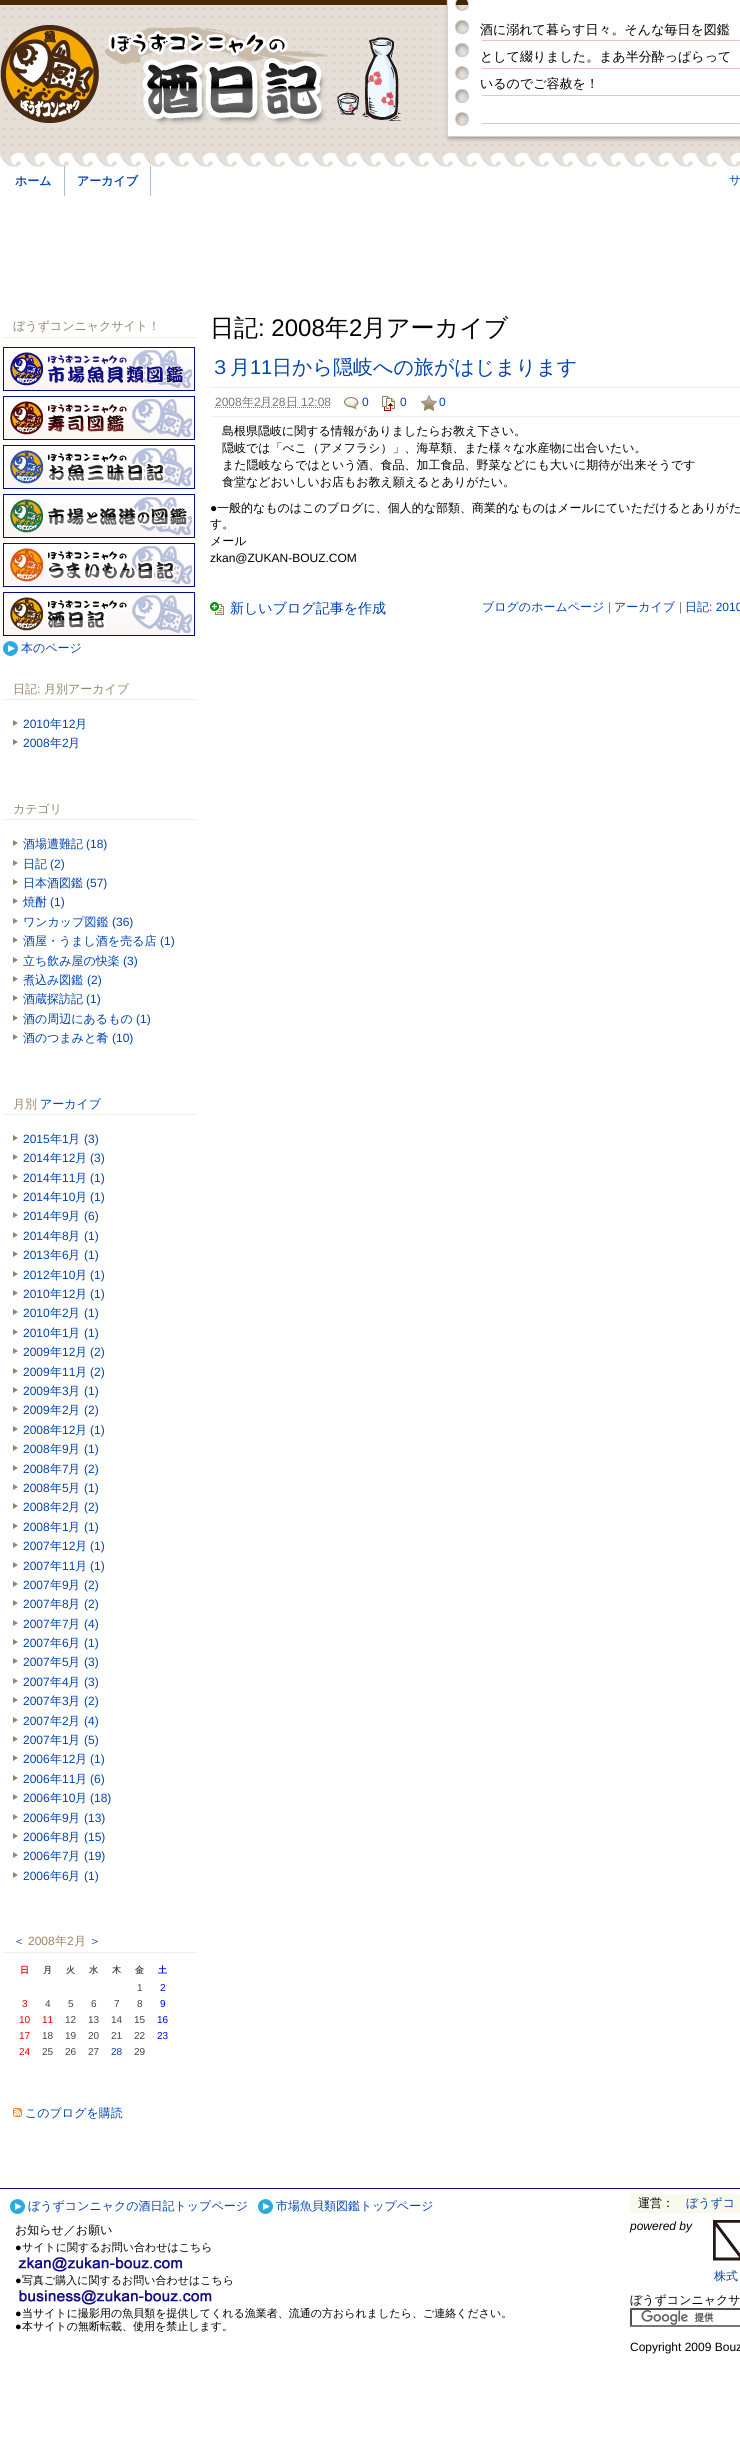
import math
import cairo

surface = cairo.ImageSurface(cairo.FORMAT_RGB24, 740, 2443)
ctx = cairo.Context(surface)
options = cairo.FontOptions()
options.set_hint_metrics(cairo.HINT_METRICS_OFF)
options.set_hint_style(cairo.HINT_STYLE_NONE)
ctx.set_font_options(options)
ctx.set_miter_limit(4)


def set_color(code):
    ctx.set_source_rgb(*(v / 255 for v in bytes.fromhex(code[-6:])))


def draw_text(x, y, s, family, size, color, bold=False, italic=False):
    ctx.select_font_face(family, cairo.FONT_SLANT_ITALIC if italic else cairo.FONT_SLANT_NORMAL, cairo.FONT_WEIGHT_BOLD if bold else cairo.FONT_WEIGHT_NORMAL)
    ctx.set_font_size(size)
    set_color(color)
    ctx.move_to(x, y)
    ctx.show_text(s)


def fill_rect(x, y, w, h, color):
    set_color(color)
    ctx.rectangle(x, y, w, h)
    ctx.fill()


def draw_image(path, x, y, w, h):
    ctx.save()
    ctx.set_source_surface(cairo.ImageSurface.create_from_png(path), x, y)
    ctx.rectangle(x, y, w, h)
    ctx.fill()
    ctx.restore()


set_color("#ffffff")
ctx.paint()
draw_image("assets/img1.png", 0, 0, 740, 167)
draw_image("assets/img2.png", 0, 25, 435, 100)
draw_image("assets/img3.png", 445, 0, 295, 143)
draw_text(480, 34, "酒に溺れて暮らす日々。そんな毎日を図鑑", "WenQuanYi Zen Hei Medium", 13, "#000000")
draw_text(480, 61, "として綴りました。まあ半分酔っぱらって", "WenQuanYi Zen Hei Medium", 13, "#000000")
draw_text(480, 88, "いるのでご容赦を！", "WenQuanYi Zen Hei Medium", 13, "#000000")
fill_rect(64, 166, 1, 30, "#a9bed4")
draw_text(15, 185, "ホーム", "WenQuanYi Zen Hei", 12, "#0042ae", bold=True)
fill_rect(150, 166, 1, 30, "#a9bed4")
draw_text(77, 185, "アーカイブ", "WenQuanYi Zen Hei", 12, "#0042ae", bold=True)
draw_text(729, 184, "サ", "WenQuanYi Zen Hei Medium", 12, "#0042ae")
fill_rect(3, 337, 194, 1, "#f3f0e8")
draw_text(13, 330, "ぼうずコンニャクサイト！", "WenQuanYi Zen Hei Medium", 12, "#948669")
draw_image("assets/img4.png", 4, 350, 190, 40)
ctx.rectangle(3.5, 347.5, 191, 43)
set_color("#000b8e")
ctx.set_line_width(1)
ctx.stroke()
draw_image("assets/img5.png", 4, 399, 190, 40)
ctx.rectangle(3.5, 396.5, 191, 43)
ctx.stroke()
draw_image("assets/img6.png", 4, 448, 190, 40)
ctx.rectangle(3.5, 445.5, 191, 43)
ctx.stroke()
draw_image("assets/img7.png", 4, 497, 190, 40)
ctx.rectangle(3.5, 494.5, 191, 43)
ctx.stroke()
draw_image("assets/img8.png", 4, 546, 190, 40)
ctx.rectangle(3.5, 543.5, 191, 43)
ctx.stroke()
draw_image("assets/img9.png", 4, 595, 190, 40)
ctx.rectangle(3.5, 592.5, 191, 43)
ctx.stroke()
draw_image("assets/img10.png", 3, 641, 15, 15)
draw_text(21, 652, "本のページ", "WenQuanYi Zen Hei Medium", 12, "#0042ae")
fill_rect(3, 699, 194, 1, "#f3f0e8")
draw_text(13, 693, "日記", "WenQuanYi Zen Hei Medium", 12, "#948669")
draw_text(37, 693, ":", "Liberation Sans", 12, "#948669")
draw_text(44, 693, "月別アーカイブ", "WenQuanYi Zen Hei Medium", 12, "#948669")
draw_image("assets/img11.png", 13, 720, 5, 6)
draw_text(23, 728, "2010", "Liberation Sans", 12, "#0042ae")
draw_text(50, 728, "年", "WenQuanYi Zen Hei Medium", 12, "#0042ae")
draw_text(62, 728, "12", "Liberation Sans", 12, "#0042ae")
draw_text(75, 728, "月", "WenQuanYi Zen Hei Medium", 12, "#0042ae")
draw_image("assets/img11.png", 13, 739, 5, 6)
draw_text(23, 747, "2008", "Liberation Sans", 12, "#0042ae")
draw_text(50, 747, "年", "WenQuanYi Zen Hei Medium", 12, "#0042ae")
draw_text(62, 747, "2", "Liberation Sans", 12, "#0042ae")
draw_text(68, 747, "月", "WenQuanYi Zen Hei Medium", 12, "#0042ae")
fill_rect(3, 819, 194, 1, "#f3f0e8")
draw_text(13, 813, "カテゴリ", "WenQuanYi Zen Hei Medium", 12, "#948669")
draw_image("assets/img11.png", 13, 840, 5, 6)
draw_text(23, 848, "酒場遭難記", "WenQuanYi Zen Hei Medium", 12, "#0042ae")
draw_text(86, 848, "(18)", "Liberation Sans", 12, "#0042ae")
draw_image("assets/img11.png", 13, 860, 5, 6)
draw_text(23, 868, "日記", "WenQuanYi Zen Hei Medium", 12, "#0042ae")
draw_text(50, 868, "(2)", "Liberation Sans", 12, "#0042ae")
draw_image("assets/img11.png", 13, 879, 5, 6)
draw_text(23, 887, "日本酒図鑑", "WenQuanYi Zen Hei Medium", 12, "#0042ae")
draw_text(86, 887, "(57)", "Liberation Sans", 12, "#0042ae")
draw_image("assets/img11.png", 13, 898, 5, 6)
draw_text(23, 906, "焼酎", "WenQuanYi Zen Hei Medium", 12, "#0042ae")
draw_text(50, 906, "(1)", "Liberation Sans", 12, "#0042ae")
draw_image("assets/img11.png", 13, 918, 5, 6)
draw_text(23, 926, "ワンカップ図鑑", "WenQuanYi Zen Hei Medium", 12, "#0042ae")
draw_text(112, 926, "(36)", "Liberation Sans", 12, "#0042ae")
draw_image("assets/img11.png", 13, 937, 5, 6)
draw_text(23, 945, "酒屋・うまし酒を売る店", "WenQuanYi Zen Hei Medium", 12, "#0042ae")
draw_text(160, 945, "(1)", "Liberation Sans", 12, "#0042ae")
draw_image("assets/img11.png", 13, 957, 5, 6)
draw_text(23, 965, "立ち飲み屋の快楽", "WenQuanYi Zen Hei Medium", 12, "#0042ae")
draw_text(123, 965, "(3)", "Liberation Sans", 12, "#0042ae")
draw_image("assets/img11.png", 13, 976, 5, 6)
draw_text(23, 984, "煮込み図鑑", "WenQuanYi Zen Hei Medium", 12, "#0042ae")
draw_text(87, 984, "(2)", "Liberation Sans", 12, "#0042ae")
draw_image("assets/img11.png", 13, 995, 5, 6)
draw_text(23, 1003, "酒蔵探訪記", "WenQuanYi Zen Hei Medium", 12, "#0042ae")
draw_text(86, 1003, "(1)", "Liberation Sans", 12, "#0042ae")
draw_image("assets/img11.png", 13, 1015, 5, 6)
draw_text(23, 1023, "酒の周辺にあるもの", "WenQuanYi Zen Hei Medium", 12, "#0042ae")
draw_text(136, 1023, "(1)", "Liberation Sans", 12, "#0042ae")
draw_image("assets/img11.png", 13, 1034, 5, 6)
draw_text(23, 1042, "酒のつまみと肴", "WenQuanYi Zen Hei Medium", 12, "#0042ae")
draw_text(112, 1042, "(10)", "Liberation Sans", 12, "#0042ae")
fill_rect(3, 1114, 194, 1, "#f3f0e8")
draw_text(13, 1108, "月別", "WenQuanYi Zen Hei Medium", 12, "#948669")
draw_text(40, 1108, "アーカイブ", "WenQuanYi Zen Hei Medium", 12, "#0042ae")
draw_image("assets/img11.png", 13, 1135, 5, 6)
draw_text(23, 1143, "2015", "Liberation Sans", 12, "#0042ae")
draw_text(50, 1143, "年", "WenQuanYi Zen Hei Medium", 12, "#0042ae")
draw_text(62, 1143, "1", "Liberation Sans", 12, "#0042ae")
draw_text(68, 1143, "月", "WenQuanYi Zen Hei Medium", 12, "#0042ae")
draw_text(84, 1143, "(3)", "Liberation Sans", 12, "#0042ae")
draw_image("assets/img11.png", 13, 1154, 5, 6)
draw_text(23, 1162, "2014", "Liberation Sans", 12, "#0042ae")
draw_text(50, 1162, "年", "WenQuanYi Zen Hei Medium", 12, "#0042ae")
draw_text(62, 1162, "12", "Liberation Sans", 12, "#0042ae")
draw_text(75, 1162, "月", "WenQuanYi Zen Hei Medium", 12, "#0042ae")
draw_text(90, 1162, "(3)", "Liberation Sans", 12, "#0042ae")
draw_image("assets/img11.png", 13, 1174, 5, 6)
draw_text(23, 1182, "2014", "Liberation Sans", 12, "#0042ae")
draw_text(50, 1182, "年", "WenQuanYi Zen Hei Medium", 12, "#0042ae")
draw_text(62, 1182, "11", "Liberation Sans", 12, "#0042ae")
draw_text(75, 1182, "月", "WenQuanYi Zen Hei Medium", 12, "#0042ae")
draw_text(90, 1182, "(1)", "Liberation Sans", 12, "#0042ae")
draw_image("assets/img11.png", 13, 1193, 5, 6)
draw_text(23, 1201, "2014", "Liberation Sans", 12, "#0042ae")
draw_text(50, 1201, "年", "WenQuanYi Zen Hei Medium", 12, "#0042ae")
draw_text(62, 1201, "10", "Liberation Sans", 12, "#0042ae")
draw_text(75, 1201, "月", "WenQuanYi Zen Hei Medium", 12, "#0042ae")
draw_text(90, 1201, "(1)", "Liberation Sans", 12, "#0042ae")
draw_image("assets/img11.png", 13, 1212, 5, 6)
draw_text(23, 1220, "2014", "Liberation Sans", 12, "#0042ae")
draw_text(50, 1220, "年", "WenQuanYi Zen Hei Medium", 12, "#0042ae")
draw_text(62, 1220, "9", "Liberation Sans", 12, "#0042ae")
draw_text(68, 1220, "月", "WenQuanYi Zen Hei Medium", 12, "#0042ae")
draw_text(84, 1220, "(6)", "Liberation Sans", 12, "#0042ae")
draw_image("assets/img11.png", 13, 1232, 5, 6)
draw_text(23, 1240, "2014", "Liberation Sans", 12, "#0042ae")
draw_text(50, 1240, "年", "WenQuanYi Zen Hei Medium", 12, "#0042ae")
draw_text(62, 1240, "8", "Liberation Sans", 12, "#0042ae")
draw_text(68, 1240, "月", "WenQuanYi Zen Hei Medium", 12, "#0042ae")
draw_text(84, 1240, "(1)", "Liberation Sans", 12, "#0042ae")
draw_image("assets/img11.png", 13, 1251, 5, 6)
draw_text(23, 1259, "2013", "Liberation Sans", 12, "#0042ae")
draw_text(50, 1259, "年", "WenQuanYi Zen Hei Medium", 12, "#0042ae")
draw_text(62, 1259, "6", "Liberation Sans", 12, "#0042ae")
draw_text(68, 1259, "月", "WenQuanYi Zen Hei Medium", 12, "#0042ae")
draw_text(84, 1259, "(1)", "Liberation Sans", 12, "#0042ae")
draw_image("assets/img11.png", 13, 1271, 5, 6)
draw_text(23, 1279, "2012", "Liberation Sans", 12, "#0042ae")
draw_text(50, 1279, "年", "WenQuanYi Zen Hei Medium", 12, "#0042ae")
draw_text(62, 1279, "10", "Liberation Sans", 12, "#0042ae")
draw_text(75, 1279, "月", "WenQuanYi Zen Hei Medium", 12, "#0042ae")
draw_text(90, 1279, "(1)", "Liberation Sans", 12, "#0042ae")
draw_image("assets/img11.png", 13, 1290, 5, 6)
draw_text(23, 1298, "2010", "Liberation Sans", 12, "#0042ae")
draw_text(50, 1298, "年", "WenQuanYi Zen Hei Medium", 12, "#0042ae")
draw_text(62, 1298, "12", "Liberation Sans", 12, "#0042ae")
draw_text(75, 1298, "月", "WenQuanYi Zen Hei Medium", 12, "#0042ae")
draw_text(90, 1298, "(1)", "Liberation Sans", 12, "#0042ae")
draw_image("assets/img11.png", 13, 1309, 5, 6)
draw_text(23, 1317, "2010", "Liberation Sans", 12, "#0042ae")
draw_text(50, 1317, "年", "WenQuanYi Zen Hei Medium", 12, "#0042ae")
draw_text(62, 1317, "2", "Liberation Sans", 12, "#0042ae")
draw_text(68, 1317, "月", "WenQuanYi Zen Hei Medium", 12, "#0042ae")
draw_text(84, 1317, "(1)", "Liberation Sans", 12, "#0042ae")
draw_image("assets/img11.png", 13, 1329, 5, 6)
draw_text(23, 1337, "2010", "Liberation Sans", 12, "#0042ae")
draw_text(50, 1337, "年", "WenQuanYi Zen Hei Medium", 12, "#0042ae")
draw_text(62, 1337, "1", "Liberation Sans", 12, "#0042ae")
draw_text(68, 1337, "月", "WenQuanYi Zen Hei Medium", 12, "#0042ae")
draw_text(84, 1337, "(1)", "Liberation Sans", 12, "#0042ae")
draw_image("assets/img11.png", 13, 1348, 5, 6)
draw_text(23, 1356, "2009", "Liberation Sans", 12, "#0042ae")
draw_text(50, 1356, "年", "WenQuanYi Zen Hei Medium", 12, "#0042ae")
draw_text(62, 1356, "12", "Liberation Sans", 12, "#0042ae")
draw_text(75, 1356, "月", "WenQuanYi Zen Hei Medium", 12, "#0042ae")
draw_text(90, 1356, "(2)", "Liberation Sans", 12, "#0042ae")
draw_image("assets/img11.png", 13, 1368, 5, 6)
draw_text(23, 1376, "2009", "Liberation Sans", 12, "#0042ae")
draw_text(50, 1376, "年", "WenQuanYi Zen Hei Medium", 12, "#0042ae")
draw_text(62, 1376, "11", "Liberation Sans", 12, "#0042ae")
draw_text(75, 1376, "月", "WenQuanYi Zen Hei Medium", 12, "#0042ae")
draw_text(90, 1376, "(2)", "Liberation Sans", 12, "#0042ae")
draw_image("assets/img11.png", 13, 1387, 5, 6)
draw_text(23, 1395, "2009", "Liberation Sans", 12, "#0042ae")
draw_text(50, 1395, "年", "WenQuanYi Zen Hei Medium", 12, "#0042ae")
draw_text(62, 1395, "3", "Liberation Sans", 12, "#0042ae")
draw_text(68, 1395, "月", "WenQuanYi Zen Hei Medium", 12, "#0042ae")
draw_text(84, 1395, "(1)", "Liberation Sans", 12, "#0042ae")
draw_image("assets/img11.png", 13, 1406, 5, 6)
draw_text(23, 1414, "2009", "Liberation Sans", 12, "#0042ae")
draw_text(50, 1414, "年", "WenQuanYi Zen Hei Medium", 12, "#0042ae")
draw_text(62, 1414, "2", "Liberation Sans", 12, "#0042ae")
draw_text(68, 1414, "月", "WenQuanYi Zen Hei Medium", 12, "#0042ae")
draw_text(84, 1414, "(2)", "Liberation Sans", 12, "#0042ae")
draw_image("assets/img11.png", 13, 1426, 5, 6)
draw_text(23, 1434, "2008", "Liberation Sans", 12, "#0042ae")
draw_text(50, 1434, "年", "WenQuanYi Zen Hei Medium", 12, "#0042ae")
draw_text(62, 1434, "12", "Liberation Sans", 12, "#0042ae")
draw_text(75, 1434, "月", "WenQuanYi Zen Hei Medium", 12, "#0042ae")
draw_text(90, 1434, "(1)", "Liberation Sans", 12, "#0042ae")
draw_image("assets/img11.png", 13, 1445, 5, 6)
draw_text(23, 1453, "2008", "Liberation Sans", 12, "#0042ae")
draw_text(50, 1453, "年", "WenQuanYi Zen Hei Medium", 12, "#0042ae")
draw_text(62, 1453, "9", "Liberation Sans", 12, "#0042ae")
draw_text(68, 1453, "月", "WenQuanYi Zen Hei Medium", 12, "#0042ae")
draw_text(84, 1453, "(1)", "Liberation Sans", 12, "#0042ae")
draw_image("assets/img11.png", 13, 1465, 5, 6)
draw_text(23, 1473, "2008", "Liberation Sans", 12, "#0042ae")
draw_text(50, 1473, "年", "WenQuanYi Zen Hei Medium", 12, "#0042ae")
draw_text(62, 1473, "7", "Liberation Sans", 12, "#0042ae")
draw_text(68, 1473, "月", "WenQuanYi Zen Hei Medium", 12, "#0042ae")
draw_text(84, 1473, "(2)", "Liberation Sans", 12, "#0042ae")
draw_image("assets/img11.png", 13, 1484, 5, 6)
draw_text(23, 1492, "2008", "Liberation Sans", 12, "#0042ae")
draw_text(50, 1492, "年", "WenQuanYi Zen Hei Medium", 12, "#0042ae")
draw_text(62, 1492, "5", "Liberation Sans", 12, "#0042ae")
draw_text(68, 1492, "月", "WenQuanYi Zen Hei Medium", 12, "#0042ae")
draw_text(84, 1492, "(1)", "Liberation Sans", 12, "#0042ae")
draw_image("assets/img11.png", 13, 1503, 5, 6)
draw_text(23, 1511, "2008", "Liberation Sans", 12, "#0042ae")
draw_text(50, 1511, "年", "WenQuanYi Zen Hei Medium", 12, "#0042ae")
draw_text(62, 1511, "2", "Liberation Sans", 12, "#0042ae")
draw_text(68, 1511, "月", "WenQuanYi Zen Hei Medium", 12, "#0042ae")
draw_text(84, 1511, "(2)", "Liberation Sans", 12, "#0042ae")
draw_image("assets/img11.png", 13, 1523, 5, 6)
draw_text(23, 1531, "2008", "Liberation Sans", 12, "#0042ae")
draw_text(50, 1531, "年", "WenQuanYi Zen Hei Medium", 12, "#0042ae")
draw_text(62, 1531, "1", "Liberation Sans", 12, "#0042ae")
draw_text(68, 1531, "月", "WenQuanYi Zen Hei Medium", 12, "#0042ae")
draw_text(84, 1531, "(1)", "Liberation Sans", 12, "#0042ae")
draw_image("assets/img11.png", 13, 1542, 5, 6)
draw_text(23, 1550, "2007", "Liberation Sans", 12, "#0042ae")
draw_text(50, 1550, "年", "WenQuanYi Zen Hei Medium", 12, "#0042ae")
draw_text(62, 1550, "12", "Liberation Sans", 12, "#0042ae")
draw_text(75, 1550, "月", "WenQuanYi Zen Hei Medium", 12, "#0042ae")
draw_text(90, 1550, "(1)", "Liberation Sans", 12, "#0042ae")
draw_image("assets/img11.png", 13, 1562, 5, 6)
draw_text(23, 1570, "2007", "Liberation Sans", 12, "#0042ae")
draw_text(50, 1570, "年", "WenQuanYi Zen Hei Medium", 12, "#0042ae")
draw_text(62, 1570, "11", "Liberation Sans", 12, "#0042ae")
draw_text(75, 1570, "月", "WenQuanYi Zen Hei Medium", 12, "#0042ae")
draw_text(90, 1570, "(1)", "Liberation Sans", 12, "#0042ae")
draw_image("assets/img11.png", 13, 1581, 5, 6)
draw_text(23, 1589, "2007", "Liberation Sans", 12, "#0042ae")
draw_text(50, 1589, "年", "WenQuanYi Zen Hei Medium", 12, "#0042ae")
draw_text(62, 1589, "9", "Liberation Sans", 12, "#0042ae")
draw_text(68, 1589, "月", "WenQuanYi Zen Hei Medium", 12, "#0042ae")
draw_text(84, 1589, "(2)", "Liberation Sans", 12, "#0042ae")
draw_image("assets/img11.png", 13, 1600, 5, 6)
draw_text(23, 1608, "2007", "Liberation Sans", 12, "#0042ae")
draw_text(50, 1608, "年", "WenQuanYi Zen Hei Medium", 12, "#0042ae")
draw_text(62, 1608, "8", "Liberation Sans", 12, "#0042ae")
draw_text(68, 1608, "月", "WenQuanYi Zen Hei Medium", 12, "#0042ae")
draw_text(84, 1608, "(2)", "Liberation Sans", 12, "#0042ae")
draw_image("assets/img11.png", 13, 1620, 5, 6)
draw_text(23, 1628, "2007", "Liberation Sans", 12, "#0042ae")
draw_text(50, 1628, "年", "WenQuanYi Zen Hei Medium", 12, "#0042ae")
draw_text(62, 1628, "7", "Liberation Sans", 12, "#0042ae")
draw_text(68, 1628, "月", "WenQuanYi Zen Hei Medium", 12, "#0042ae")
draw_text(84, 1628, "(4)", "Liberation Sans", 12, "#0042ae")
draw_image("assets/img11.png", 13, 1639, 5, 6)
draw_text(23, 1647, "2007", "Liberation Sans", 12, "#0042ae")
draw_text(50, 1647, "年", "WenQuanYi Zen Hei Medium", 12, "#0042ae")
draw_text(62, 1647, "6", "Liberation Sans", 12, "#0042ae")
draw_text(68, 1647, "月", "WenQuanYi Zen Hei Medium", 12, "#0042ae")
draw_text(84, 1647, "(1)", "Liberation Sans", 12, "#0042ae")
draw_image("assets/img11.png", 13, 1658, 5, 6)
draw_text(23, 1666, "2007", "Liberation Sans", 12, "#0042ae")
draw_text(50, 1666, "年", "WenQuanYi Zen Hei Medium", 12, "#0042ae")
draw_text(62, 1666, "5", "Liberation Sans", 12, "#0042ae")
draw_text(68, 1666, "月", "WenQuanYi Zen Hei Medium", 12, "#0042ae")
draw_text(84, 1666, "(3)", "Liberation Sans", 12, "#0042ae")
draw_image("assets/img11.png", 13, 1678, 5, 6)
draw_text(23, 1686, "2007", "Liberation Sans", 12, "#0042ae")
draw_text(50, 1686, "年", "WenQuanYi Zen Hei Medium", 12, "#0042ae")
draw_text(62, 1686, "4", "Liberation Sans", 12, "#0042ae")
draw_text(68, 1686, "月", "WenQuanYi Zen Hei Medium", 12, "#0042ae")
draw_text(84, 1686, "(3)", "Liberation Sans", 12, "#0042ae")
draw_image("assets/img11.png", 13, 1697, 5, 6)
draw_text(23, 1705, "2007", "Liberation Sans", 12, "#0042ae")
draw_text(50, 1705, "年", "WenQuanYi Zen Hei Medium", 12, "#0042ae")
draw_text(62, 1705, "3", "Liberation Sans", 12, "#0042ae")
draw_text(68, 1705, "月", "WenQuanYi Zen Hei Medium", 12, "#0042ae")
draw_text(84, 1705, "(2)", "Liberation Sans", 12, "#0042ae")
draw_image("assets/img11.png", 13, 1717, 5, 6)
draw_text(23, 1725, "2007", "Liberation Sans", 12, "#0042ae")
draw_text(50, 1725, "年", "WenQuanYi Zen Hei Medium", 12, "#0042ae")
draw_text(62, 1725, "2", "Liberation Sans", 12, "#0042ae")
draw_text(68, 1725, "月", "WenQuanYi Zen Hei Medium", 12, "#0042ae")
draw_text(84, 1725, "(4)", "Liberation Sans", 12, "#0042ae")
draw_image("assets/img11.png", 13, 1736, 5, 6)
draw_text(23, 1744, "2007", "Liberation Sans", 12, "#0042ae")
draw_text(50, 1744, "年", "WenQuanYi Zen Hei Medium", 12, "#0042ae")
draw_text(62, 1744, "1", "Liberation Sans", 12, "#0042ae")
draw_text(68, 1744, "月", "WenQuanYi Zen Hei Medium", 12, "#0042ae")
draw_text(84, 1744, "(5)", "Liberation Sans", 12, "#0042ae")
draw_image("assets/img11.png", 13, 1755, 5, 6)
draw_text(23, 1763, "2006", "Liberation Sans", 12, "#0042ae")
draw_text(50, 1763, "年", "WenQuanYi Zen Hei Medium", 12, "#0042ae")
draw_text(62, 1763, "12", "Liberation Sans", 12, "#0042ae")
draw_text(75, 1763, "月", "WenQuanYi Zen Hei Medium", 12, "#0042ae")
draw_text(90, 1763, "(1)", "Liberation Sans", 12, "#0042ae")
draw_image("assets/img11.png", 13, 1775, 5, 6)
draw_text(23, 1783, "2006", "Liberation Sans", 12, "#0042ae")
draw_text(50, 1783, "年", "WenQuanYi Zen Hei Medium", 12, "#0042ae")
draw_text(62, 1783, "11", "Liberation Sans", 12, "#0042ae")
draw_text(75, 1783, "月", "WenQuanYi Zen Hei Medium", 12, "#0042ae")
draw_text(90, 1783, "(6)", "Liberation Sans", 12, "#0042ae")
draw_image("assets/img11.png", 13, 1794, 5, 6)
draw_text(23, 1802, "2006", "Liberation Sans", 12, "#0042ae")
draw_text(50, 1802, "年", "WenQuanYi Zen Hei Medium", 12, "#0042ae")
draw_text(62, 1802, "10", "Liberation Sans", 12, "#0042ae")
draw_text(75, 1802, "月", "WenQuanYi Zen Hei Medium", 12, "#0042ae")
draw_text(90, 1802, "(18)", "Liberation Sans", 12, "#0042ae")
draw_image("assets/img11.png", 13, 1814, 5, 6)
draw_text(23, 1822, "2006", "Liberation Sans", 12, "#0042ae")
draw_text(50, 1822, "年", "WenQuanYi Zen Hei Medium", 12, "#0042ae")
draw_text(62, 1822, "9", "Liberation Sans", 12, "#0042ae")
draw_text(68, 1822, "月", "WenQuanYi Zen Hei Medium", 12, "#0042ae")
draw_text(84, 1822, "(13)", "Liberation Sans", 12, "#0042ae")
draw_image("assets/img11.png", 13, 1833, 5, 6)
draw_text(23, 1841, "2006", "Liberation Sans", 12, "#0042ae")
draw_text(50, 1841, "年", "WenQuanYi Zen Hei Medium", 12, "#0042ae")
draw_text(62, 1841, "8", "Liberation Sans", 12, "#0042ae")
draw_text(68, 1841, "月", "WenQuanYi Zen Hei Medium", 12, "#0042ae")
draw_text(84, 1841, "(15)", "Liberation Sans", 12, "#0042ae")
draw_image("assets/img11.png", 13, 1852, 5, 6)
draw_text(23, 1860, "2006", "Liberation Sans", 12, "#0042ae")
draw_text(50, 1860, "年", "WenQuanYi Zen Hei Medium", 12, "#0042ae")
draw_text(62, 1860, "7", "Liberation Sans", 12, "#0042ae")
draw_text(68, 1860, "月", "WenQuanYi Zen Hei Medium", 12, "#0042ae")
draw_text(84, 1860, "(19)", "Liberation Sans", 12, "#0042ae")
draw_image("assets/img11.png", 13, 1872, 5, 6)
draw_text(23, 1880, "2006", "Liberation Sans", 12, "#0042ae")
draw_text(50, 1880, "年", "WenQuanYi Zen Hei Medium", 12, "#0042ae")
draw_text(62, 1880, "6", "Liberation Sans", 12, "#0042ae")
draw_text(68, 1880, "月", "WenQuanYi Zen Hei Medium", 12, "#0042ae")
draw_text(84, 1880, "(1)", "Liberation Sans", 12, "#0042ae")
fill_rect(3, 1952, 194, 1, "#f3f0e8")
draw_text(13, 1945, "＜", "WenQuanYi Zen Hei Medium", 12, "#0042ae")
draw_text(28, 1945, "2008", "Liberation Sans", 12, "#948669")
draw_text(55, 1945, "年", "WenQuanYi Zen Hei Medium", 12, "#948669")
draw_text(67, 1945, "2", "Liberation Sans", 12, "#948669")
draw_text(74, 1945, "月", "WenQuanYi Zen Hei Medium", 12, "#948669")
draw_text(89, 1945, "＞", "WenQuanYi Zen Hei Medium", 12, "#0042ae")
draw_text(20, 1973, "日", "WenQuanYi Zen Hei", 9, "#e50003", bold=True)
draw_text(43, 1973, "月", "WenQuanYi Zen Hei", 9, "#444444", bold=True)
draw_text(66, 1973, "火", "WenQuanYi Zen Hei", 9, "#444444", bold=True)
draw_text(89, 1973, "水", "WenQuanYi Zen Hei", 9, "#444444", bold=True)
draw_text(112, 1973, "木", "WenQuanYi Zen Hei", 9, "#444444", bold=True)
draw_text(135, 1973, "金", "WenQuanYi Zen Hei", 9, "#444444", bold=True)
draw_text(158, 1973, "土", "WenQuanYi Zen Hei", 9, "#0000ff", bold=True)
draw_text(137, 1991, "1", "Liberation Sans", 10, "#444444")
draw_text(160, 1991, "2", "Liberation Sans", 10, "#0000ff")
draw_text(22, 2007, "3", "Liberation Sans", 10, "#e50003")
draw_text(45, 2007, "4", "Liberation Sans", 10, "#444444")
draw_text(68, 2007, "5", "Liberation Sans", 10, "#444444")
draw_text(91, 2007, "6", "Liberation Sans", 10, "#444444")
draw_text(114, 2007, "7", "Liberation Sans", 10, "#444444")
draw_text(137, 2007, "8", "Liberation Sans", 10, "#444444")
draw_text(160, 2007, "9", "Liberation Sans", 10, "#0000ff")
draw_text(19, 2023, "10", "Liberation Sans", 10, "#e50003")
draw_text(42, 2023, "11", "Liberation Sans", 10, "#e50003")
draw_text(65, 2023, "12", "Liberation Sans", 10, "#444444")
draw_text(88, 2023, "13", "Liberation Sans", 10, "#444444")
draw_text(111, 2023, "14", "Liberation Sans", 10, "#444444")
draw_text(134, 2023, "15", "Liberation Sans", 10, "#444444")
draw_text(157, 2023, "16", "Liberation Sans", 10, "#0000ff")
draw_text(19, 2039, "17", "Liberation Sans", 10, "#e50003")
draw_text(42, 2039, "18", "Liberation Sans", 10, "#444444")
draw_text(65, 2039, "19", "Liberation Sans", 10, "#444444")
draw_text(88, 2039, "20", "Liberation Sans", 10, "#444444")
draw_text(111, 2039, "21", "Liberation Sans", 10, "#444444")
draw_text(134, 2039, "22", "Liberation Sans", 10, "#444444")
draw_text(157, 2039, "23", "Liberation Sans", 10, "#0000ff")
draw_text(19, 2055, "24", "Liberation Sans", 10, "#e50003")
draw_text(42, 2055, "25", "Liberation Sans", 10, "#444444")
draw_text(65, 2055, "26", "Liberation Sans", 10, "#444444")
draw_text(88, 2055, "27", "Liberation Sans", 10, "#444444")
draw_text(111, 2055, "28", "Liberation Sans", 10, "#0042ae")
draw_text(134, 2055, "29", "Liberation Sans", 10, "#444444")
draw_image("assets/img12.png", 13, 2108, 9, 9)
draw_text(25, 2117, "このブログを購読", "WenQuanYi Zen Hei Medium", 12, "#0042ae")
draw_text(210, 336, "日記", "WenQuanYi Zen Hei Medium", 24, "#000000")
draw_text(258, 336, ": 2008", "Liberation Sans", 24, "#000000")
draw_text(325, 336, "年", "WenQuanYi Zen Hei Medium", 24, "#000000")
draw_text(349, 336, "2", "Liberation Sans", 24, "#000000")
draw_text(362, 336, "月アーカイブ", "WenQuanYi Zen Hei Medium", 24, "#000000")
draw_text(210, 374, "３月", "WenQuanYi Zen Hei Medium", 20, "#0042ae")
draw_text(250, 374, "11", "Liberation Sans", 20, "#0042ae")
draw_text(272, 374, "日から隠岐への旅がはじまります", "WenQuanYi Zen Hei Medium", 20, "#0042ae")
fill_rect(210, 387, 530, 1, "#f3f0e8")
fill_rect(210, 416, 530, 1, "#f3f0e8")
draw_text(215, 406, "2008", "Liberation Sans", 12, "#777777")
ctx.new_path()
ctx.move_to(215, 407.5)
ctx.line_to(331, 407.5)
ctx.set_dash([1, 1])
ctx.stroke()
draw_text(242, 406, "年", "WenQuanYi Zen Hei Medium", 12, "#777777")
draw_text(254, 406, "2", "Liberation Sans", 12, "#777777")
draw_text(260, 406, "月", "WenQuanYi Zen Hei Medium", 12, "#777777")
draw_text(272, 406, "28", "Liberation Sans", 12, "#777777")
draw_text(286, 406, "日", "WenQuanYi Zen Hei Medium", 12, "#777777")
draw_text(301, 406, "12:08", "Liberation Sans", 12, "#777777")
draw_image("assets/img13.png", 344, 397, 15, 13)
draw_text(362, 406, "0", "Liberation Sans", 12, "#0042ae")
draw_image("assets/img14.png", 382, 396, 13, 15)
draw_text(400, 406, "0", "Liberation Sans", 12, "#0042ae")
draw_image("assets/img15.png", 421, 395, 16, 16)
draw_text(439, 406, "0", "Liberation Sans", 12, "#0042ae")
draw_text(222, 435, "島根県隠岐に関する情報がありましたらお教え下さい。", "WenQuanYi Zen Hei Medium", 12, "#000000")
draw_text(222, 452, "隠岐では「べこ（アメフラシ）」、海草類、また様々な水産物に出合いたい。", "WenQuanYi Zen Hei Medium", 12, "#000000")
draw_text(222, 469, "また隠岐ならではという酒、食品、加工食品、野菜などにも大いに期待が出来そうです", "WenQuanYi Zen Hei Medium", 12, "#000000")
draw_text(222, 486, "食堂などおいしいお店もお教え願えるとありがたい。", "WenQuanYi Zen Hei Medium", 12, "#000000")
draw_text(210, 512, "●", "Liberation Sans", 12, "#000000")
draw_text(217, 512, "一般的なものはこのブログに、個人的な部類、商業的なものはメールにていただけるとありがた", "WenQuanYi Zen Hei Medium", 12, "#000000")
draw_text(210, 528, "す。", "WenQuanYi Zen Hei Medium", 12, "#000000")
draw_text(210, 545, "メール", "WenQuanYi Zen Hei Medium", 12, "#000000")
draw_text(210, 562, "zkan@ZUKAN-BOUZ.COM", "Liberation Sans", 12, "#000000")
draw_image("assets/img16.png", 210, 602, 14, 13)
draw_text(230, 613, "新しいブログ記事を作成", "WenQuanYi Zen Hei Medium", 14, "#0042ae")
draw_text(482, 611, "ブログのホームページ", "WenQuanYi Zen Hei Medium", 12, "#0042ae")
draw_text(608, 611, "|", "Liberation Sans", 12, "#777777")
draw_text(614, 611, "アーカイブ", "WenQuanYi Zen Hei Medium", 12, "#0042ae")
draw_text(679, 611, "|", "Liberation Sans", 12, "#777777")
draw_text(685, 611, "日記", "WenQuanYi Zen Hei Medium", 12, "#0042ae")
draw_text(709, 611, ": 2010", "Liberation Sans", 12, "#0042ae")
fill_rect(0, 2188, 740, 1, "#131083")
draw_image("assets/img10.png", 10, 2199, 15, 15)
draw_text(28, 2210, "ぼうずコンニャクの酒日記トップページ", "WenQuanYi Zen Hei Medium", 12, "#0042ae")
draw_image("assets/img10.png", 258, 2199, 15, 15)
draw_text(276, 2210, "市場魚貝類図鑑トップページ", "WenQuanYi Zen Hei Medium", 12, "#0042ae")
fill_rect(630, 2194, 110, 19, "#f9faeb")
draw_text(638, 2207, "運営：", "WenQuanYi Zen Hei Medium", 12, "#000000")
draw_text(686, 2207, "ぼうずコ", "WenQuanYi Zen Hei Medium", 12, "#0042ae")
draw_text(630, 2230, "powered by", "Liberation Sans", 12, "#000000", italic=True)
draw_image("assets/img17.png", 713, 2220, 27, 41)
draw_text(714, 2280, "株式", "WenQuanYi Zen Hei Medium", 12, "#0042ae")
draw_text(630, 2304, "ぼうずコンニャクサ", "WenQuanYi Zen Hei Medium", 12, "#000000")
draw_image("assets/img18.png", 641, 2310, 73, 15)
set_color("#4f4f4f")
ctx.new_path()
ctx.move_to(630, 2308)
ctx.line_to(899, 2308)
ctx.line_to(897, 2310)
ctx.line_to(632, 2310)
ctx.close_path()
ctx.fill()
set_color("#767676")
ctx.new_path()
ctx.move_to(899, 2327)
ctx.line_to(630, 2327)
ctx.line_to(632, 2325)
ctx.line_to(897, 2325)
ctx.close_path()
ctx.fill()
set_color("#4f4f4f")
ctx.new_path()
ctx.move_to(630, 2327)
ctx.line_to(630, 2308)
ctx.line_to(632, 2310)
ctx.line_to(632, 2325)
ctx.close_path()
ctx.fill()
draw_text(630, 2351, "Copyright 2009 Bouz", "Liberation Sans", 12, "#000000")
draw_text(15, 2234, "お知らせ／お願い", "WenQuanYi Zen Hei Medium", 12, "#000000")
draw_text(15, 2251, "●", "Liberation Sans", 11, "#000000")
draw_text(22, 2251, "サイトに関するお問い合わせはこちら", "WenQuanYi Zen Hei Medium", 11, "#000000")
draw_image("assets/img19.png", 18, 2257, 164, 15)
draw_text(15, 2284, "●", "Liberation Sans", 11, "#000000")
draw_text(22, 2284, "写真ご購入に関するお問い合わせはこちら", "WenQuanYi Zen Hei Medium", 11, "#000000")
draw_image("assets/img20.png", 19, 2290, 193, 15)
draw_text(15, 2317, "●", "Liberation Sans", 11, "#000000")
draw_text(22, 2317, "当サイトに撮影用の魚貝類を提供してくれる漁業者、流通の方おられましたら、ご連絡ください。", "WenQuanYi Zen Hei Medium", 11, "#000000")
draw_text(15, 2330, "●", "Liberation Sans", 11, "#000000")
draw_text(22, 2330, "本サイトの無断転載、使用を禁止します。", "WenQuanYi Zen Hei Medium", 11, "#000000")
surface.write_to_png("output.png")
